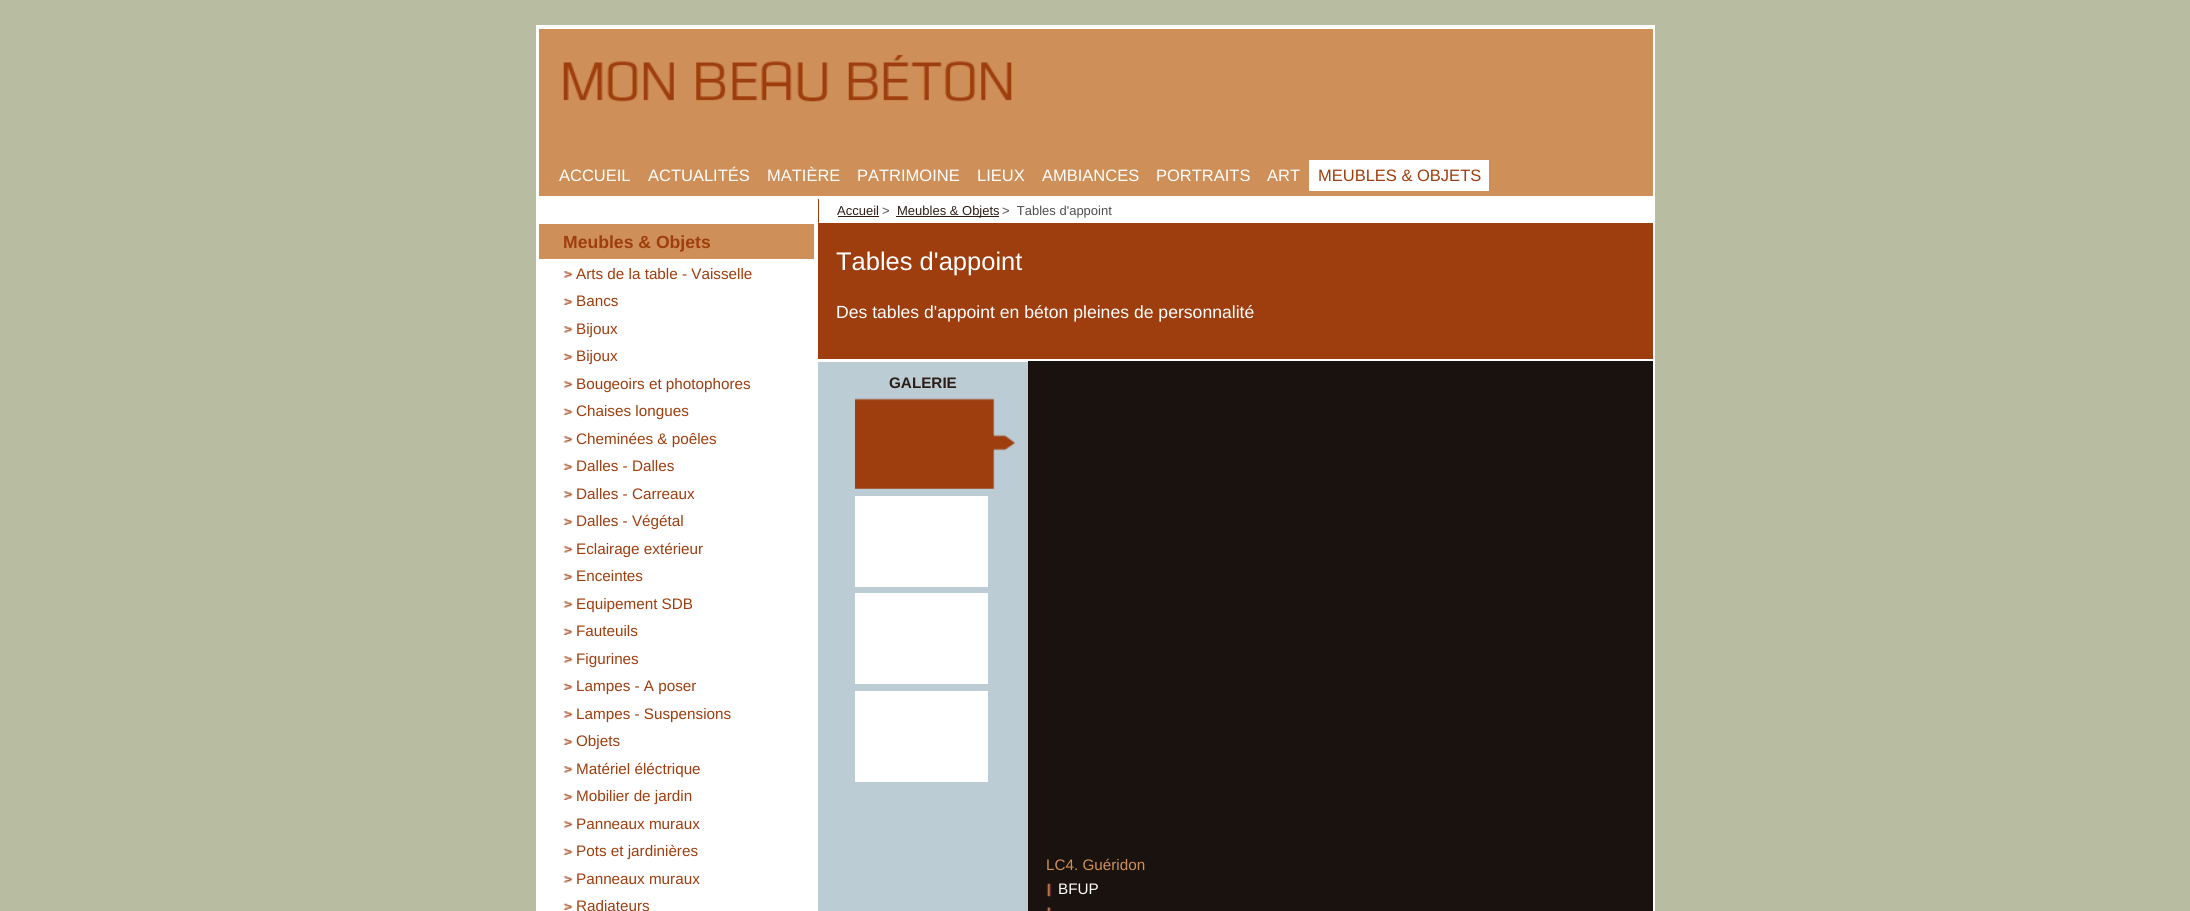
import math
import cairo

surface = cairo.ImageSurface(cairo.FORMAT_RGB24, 2190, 911)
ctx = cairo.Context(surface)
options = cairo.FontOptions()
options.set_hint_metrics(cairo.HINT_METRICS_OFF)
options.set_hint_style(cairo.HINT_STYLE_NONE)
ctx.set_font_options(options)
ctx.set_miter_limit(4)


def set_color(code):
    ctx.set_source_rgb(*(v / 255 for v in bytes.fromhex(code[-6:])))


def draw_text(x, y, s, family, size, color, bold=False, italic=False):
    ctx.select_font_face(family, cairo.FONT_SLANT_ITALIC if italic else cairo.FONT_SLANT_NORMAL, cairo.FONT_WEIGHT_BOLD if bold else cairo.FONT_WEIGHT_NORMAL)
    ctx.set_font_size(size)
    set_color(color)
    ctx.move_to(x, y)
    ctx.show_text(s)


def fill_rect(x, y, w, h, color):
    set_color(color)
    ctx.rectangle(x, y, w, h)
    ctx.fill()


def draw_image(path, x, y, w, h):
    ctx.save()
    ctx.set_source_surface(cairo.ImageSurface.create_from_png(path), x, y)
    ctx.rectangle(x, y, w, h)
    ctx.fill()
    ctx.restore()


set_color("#b8bca0")
ctx.paint()
fill_rect(536, 25, 1119, 886, "#ffffff")
fill_rect(539, 29, 1114, 167, "#ce9058")
draw_image("assets/img1.png", 563, 54, 449, 48)
draw_text(559, 181, "ACCUEIL", "Liberation Sans", 16.5, "#ffffff")
draw_text(648, 181, "ACTUALITÉS", "Liberation Sans", 16.5, "#ffffff")
draw_text(767, 181, "MATIÈRE", "Liberation Sans", 16.5, "#ffffff")
draw_text(857, 181, "PATRIMOINE", "Liberation Sans", 16.5, "#ffffff")
draw_text(977, 181, "LIEUX", "Liberation Sans", 16.5, "#ffffff")
draw_text(1042, 181, "AMBIANCES", "Liberation Sans", 16.5, "#ffffff")
draw_text(1156, 181, "PORTRAITS", "Liberation Sans", 16.5, "#ffffff")
draw_text(1267, 181, "ART", "Liberation Sans", 16.5, "#ffffff")
fill_rect(1309, 160, 180, 31, "#ffffff")
draw_text(1318, 181, "MEUBLES & OBJETS", "Liberation Sans", 16.5, "#9e3d0d")
fill_rect(539, 224, 275, 35, "#ce9058")
draw_text(563, 248, "Meubles & Objets", "Liberation Sans", 17.6, "#9e3d0d", bold=True)
draw_image("assets/img2.png", 563, 271, 10, 7)
draw_text(576, 279, "Arts de la table - Vaisselle", "Liberation Sans", 15.25, "#9e3d0d")
draw_image("assets/img3.png", 563, 298, 10, 7)
draw_text(576, 306, "Bancs", "Liberation Sans", 15.25, "#9e3d0d")
draw_image("assets/img2.png", 563, 326, 10, 7)
draw_text(576, 334, "Bijoux", "Liberation Sans", 15.25, "#9e3d0d")
draw_image("assets/img3.png", 563, 353, 10, 7)
draw_text(576, 361, "Bijoux", "Liberation Sans", 15.25, "#9e3d0d")
draw_image("assets/img2.png", 563, 381, 10, 7)
draw_text(576, 389, "Bougeoirs et photophores", "Liberation Sans", 15.25, "#9e3d0d")
draw_image("assets/img3.png", 563, 408, 10, 7)
draw_text(576, 416, "Chaises longues", "Liberation Sans", 15.25, "#9e3d0d")
draw_image("assets/img2.png", 563, 436, 10, 7)
draw_text(576, 444, "Cheminées & poêles", "Liberation Sans", 15.25, "#9e3d0d")
draw_image("assets/img3.png", 563, 463, 10, 7)
draw_text(576, 471, "Dalles - Dalles", "Liberation Sans", 15.25, "#9e3d0d")
draw_image("assets/img2.png", 563, 491, 10, 7)
draw_text(576, 499, "Dalles - Carreaux", "Liberation Sans", 15.25, "#9e3d0d")
draw_image("assets/img3.png", 563, 518, 10, 7)
draw_text(576, 526, "Dalles - Végétal", "Liberation Sans", 15.25, "#9e3d0d")
draw_image("assets/img2.png", 563, 546, 10, 7)
draw_text(576, 554, "Eclairage extérieur", "Liberation Sans", 15.25, "#9e3d0d")
draw_image("assets/img3.png", 563, 573, 10, 7)
draw_text(576, 581, "Enceintes", "Liberation Sans", 15.25, "#9e3d0d")
draw_image("assets/img2.png", 563, 601, 10, 7)
draw_text(576, 609, "Equipement SDB", "Liberation Sans", 15.25, "#9e3d0d")
draw_image("assets/img3.png", 563, 628, 10, 7)
draw_text(576, 636, "Fauteuils", "Liberation Sans", 15.25, "#9e3d0d")
draw_image("assets/img2.png", 563, 656, 10, 7)
draw_text(576, 664, "Figurines", "Liberation Sans", 15.25, "#9e3d0d")
draw_image("assets/img3.png", 563, 683, 10, 7)
draw_text(576, 691, "Lampes - A poser", "Liberation Sans", 15.25, "#9e3d0d")
draw_image("assets/img2.png", 563, 711, 10, 7)
draw_text(576, 719, "Lampes - Suspensions", "Liberation Sans", 15.25, "#9e3d0d")
draw_image("assets/img3.png", 563, 738, 10, 7)
draw_text(576, 746, "Objets", "Liberation Sans", 15.25, "#9e3d0d")
draw_image("assets/img2.png", 563, 766, 10, 7)
draw_text(576, 774, "Matériel éléctrique", "Liberation Sans", 15.25, "#9e3d0d")
draw_image("assets/img3.png", 563, 793, 10, 7)
draw_text(576, 801, "Mobilier de jardin", "Liberation Sans", 15.25, "#9e3d0d")
draw_image("assets/img2.png", 563, 821, 10, 7)
draw_text(576, 829, "Panneaux muraux", "Liberation Sans", 15.25, "#9e3d0d")
draw_image("assets/img3.png", 563, 848, 10, 7)
draw_text(576, 856, "Pots et jardinières", "Liberation Sans", 15.25, "#9e3d0d")
draw_image("assets/img2.png", 563, 876, 10, 7)
draw_text(576, 884, "Panneaux muraux", "Liberation Sans", 15.25, "#9e3d0d")
draw_image("assets/img3.png", 563, 903, 10, 7)
draw_text(576, 911, "Radiateurs", "Liberation Sans", 15.25, "#9e3d0d")
fill_rect(818, 199, 1, 24, "#9e3d0d")
draw_text(837, 215, "Accueil", "Liberation Sans", 13, "#2c1d16")
fill_rect(838, 216, 41, 1, "#2c1d16")
draw_text(882, 215, ">", "Liberation Sans", 13, "#4f4f4f")
fill_rect(896, 216, 103, 1, "#2c1d16")
draw_text(897, 215, "Meubles & Objets", "Liberation Sans", 13, "#2c1d16")
draw_text(1002, 215, ">  Tables d'appoint", "Liberation Sans", 13, "#4f4f4f")
fill_rect(818, 223, 835, 136, "#9e3d0d")
draw_text(836, 270, "Tables d'appoint", "Liberation Sans", 25.5, "#ffffff")
draw_text(836, 318, "Des tables d'appoint en béton pleines de personnalité", "Liberation Sans", 17.6, "#ffffff")
fill_rect(818, 362, 210, 549, "#bbccd5")
draw_text(889, 388, "GALERIE", "Liberation Sans", 15.25, "#2c1d16", bold=True)
draw_image("assets/img4.png", 855, 398, 160, 91)
fill_rect(855, 496, 133, 91, "#ffffff")
fill_rect(855, 593, 133, 91, "#ffffff")
fill_rect(855, 691, 133, 91, "#ffffff")
fill_rect(1028, 361, 625, 550, "#1a120e")
draw_text(1046, 870, "LC4. Guéridon", "Liberation Sans", 15.25, "#ce9058")
draw_image("assets/img5.png", 1046, 883, 6, 14)
draw_text(1058, 894, "BFUP", "Liberation Sans", 15.25, "#ffffff")
draw_image("assets/img6.png", 1046, 907, 6, 4)
surface.write_to_png("output.png")
